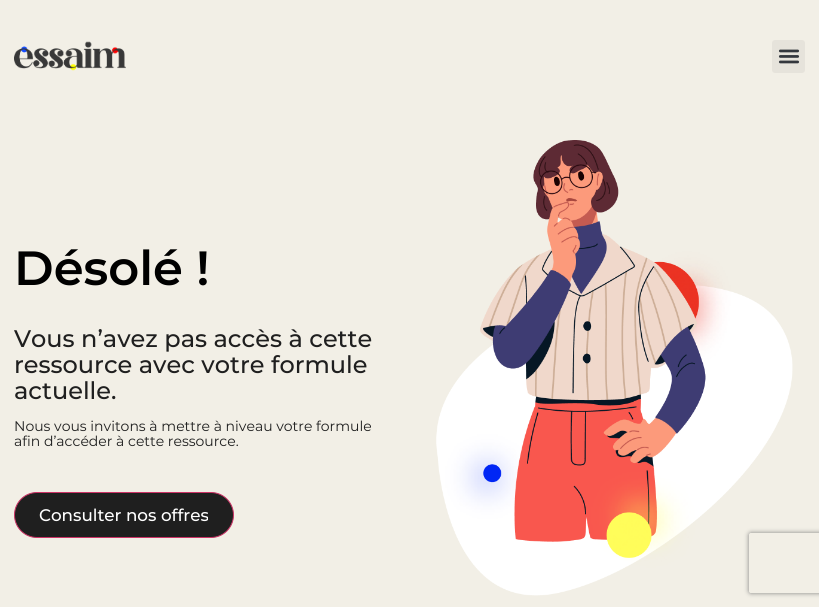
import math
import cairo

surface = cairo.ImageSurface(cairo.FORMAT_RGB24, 819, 607)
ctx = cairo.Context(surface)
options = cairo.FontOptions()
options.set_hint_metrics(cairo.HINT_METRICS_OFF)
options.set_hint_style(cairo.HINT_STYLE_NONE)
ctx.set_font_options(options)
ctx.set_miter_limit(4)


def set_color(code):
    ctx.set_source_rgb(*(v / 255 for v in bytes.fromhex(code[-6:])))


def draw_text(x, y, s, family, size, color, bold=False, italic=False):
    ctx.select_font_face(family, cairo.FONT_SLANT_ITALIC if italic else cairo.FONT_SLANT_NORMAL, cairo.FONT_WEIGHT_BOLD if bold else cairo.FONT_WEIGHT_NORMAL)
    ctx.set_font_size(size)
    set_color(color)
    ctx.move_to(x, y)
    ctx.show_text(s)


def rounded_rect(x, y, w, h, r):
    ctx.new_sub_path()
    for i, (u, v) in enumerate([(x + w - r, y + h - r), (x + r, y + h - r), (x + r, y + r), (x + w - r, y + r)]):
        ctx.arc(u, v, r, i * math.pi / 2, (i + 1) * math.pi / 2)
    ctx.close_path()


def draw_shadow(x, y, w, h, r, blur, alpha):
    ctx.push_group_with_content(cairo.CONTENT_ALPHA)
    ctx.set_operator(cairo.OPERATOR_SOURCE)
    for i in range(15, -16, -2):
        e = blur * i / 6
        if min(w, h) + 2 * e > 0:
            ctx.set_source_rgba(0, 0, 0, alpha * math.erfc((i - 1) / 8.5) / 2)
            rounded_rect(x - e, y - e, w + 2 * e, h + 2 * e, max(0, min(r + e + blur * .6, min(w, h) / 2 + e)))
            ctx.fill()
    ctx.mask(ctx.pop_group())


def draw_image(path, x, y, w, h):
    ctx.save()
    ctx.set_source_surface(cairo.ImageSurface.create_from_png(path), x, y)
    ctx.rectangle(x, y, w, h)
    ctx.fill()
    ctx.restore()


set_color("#f2efe6")
ctx.paint()
draw_image("assets/img1.png", 14, 41, 112, 30)
set_color("#e6e3db")
rounded_rect(772, 40, 33, 33, 3)
ctx.fill()
draw_image("assets/img2.png", 778, 49, 22, 15)
draw_text(14, 285, "Désolé !", "Montserrat SemiBold", 48, "#000000")
draw_text(14, 347, "Vous n’avez pas accès à cette", "Montserrat Medium", 24, "#1f1f1f")
draw_text(14, 373, "ressource avec votre formule", "Montserrat Medium", 24, "#1f1f1f")
draw_text(14, 399, "actuelle.", "Montserrat Medium", 24, "#1f1f1f")
draw_text(14, 431, "Nous vous invitons à mettre à niveau votre formule", "Montserrat", 14, "#1f1f1f")
draw_text(14, 446, "afin d’accéder à cette ressource.", "Montserrat", 14, "#1f1f1f")
rounded_rect(14.5, 492.5, 219, 45, 22.5)
ctx.fill_preserve()
set_color("#cc3366")
ctx.set_line_width(1)
ctx.stroke()
draw_text(39, 521, "Consulter nos offres", "Montserrat Medium", 16.75, "#ffffff")
draw_image("assets/img3.png", 436, 140, 357, 456)
ctx.save()
ctx.set_fill_rule(cairo.FILL_RULE_EVEN_ODD)
ctx.new_path()
ctx.move_to(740, 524)
ctx.line_to(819, 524)
ctx.line_to(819, 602)
ctx.line_to(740, 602)
ctx.close_path()
ctx.move_to(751, 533)
ctx.line_to(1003, 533)
ctx.curve_to(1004, 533, 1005, 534, 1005, 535)
ctx.line_to(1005, 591)
ctx.curve_to(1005, 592, 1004, 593, 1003, 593)
ctx.line_to(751, 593)
ctx.curve_to(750, 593, 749, 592, 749, 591)
ctx.line_to(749, 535)
ctx.curve_to(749, 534, 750, 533, 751, 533)
ctx.close_path()
ctx.clip()
set_color("#808080")
draw_shadow(749, 533, 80, 60, 2, 2.5, 1)
ctx.restore()
surface.write_to_png("output.png")
